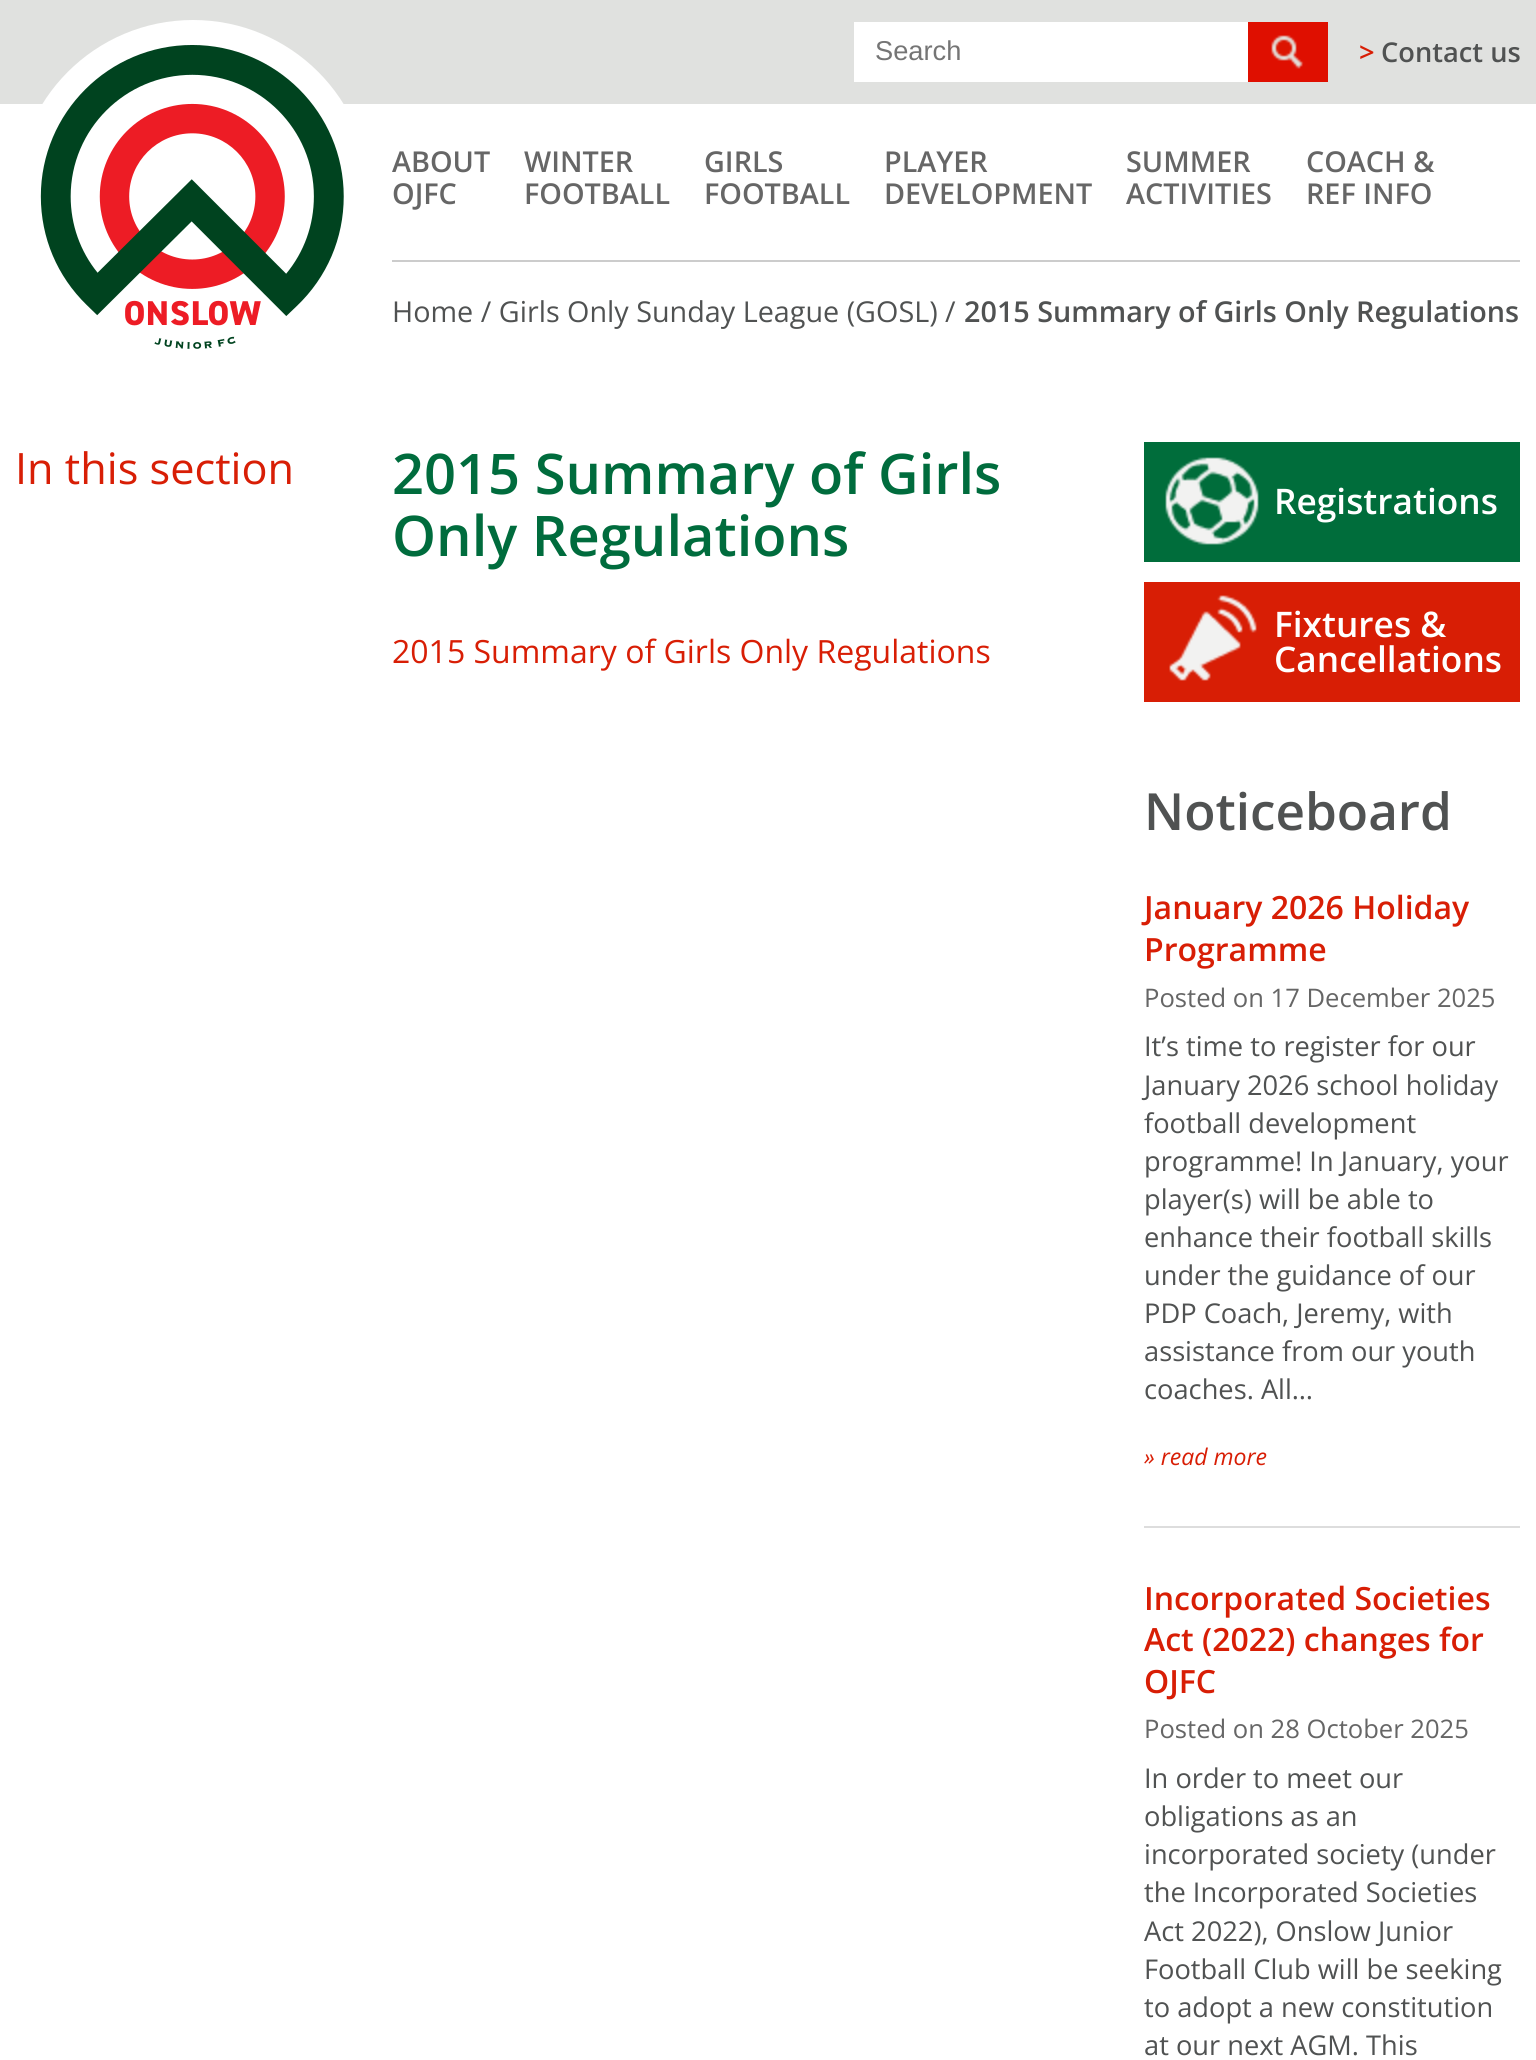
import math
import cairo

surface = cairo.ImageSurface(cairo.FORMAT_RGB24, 1536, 2060)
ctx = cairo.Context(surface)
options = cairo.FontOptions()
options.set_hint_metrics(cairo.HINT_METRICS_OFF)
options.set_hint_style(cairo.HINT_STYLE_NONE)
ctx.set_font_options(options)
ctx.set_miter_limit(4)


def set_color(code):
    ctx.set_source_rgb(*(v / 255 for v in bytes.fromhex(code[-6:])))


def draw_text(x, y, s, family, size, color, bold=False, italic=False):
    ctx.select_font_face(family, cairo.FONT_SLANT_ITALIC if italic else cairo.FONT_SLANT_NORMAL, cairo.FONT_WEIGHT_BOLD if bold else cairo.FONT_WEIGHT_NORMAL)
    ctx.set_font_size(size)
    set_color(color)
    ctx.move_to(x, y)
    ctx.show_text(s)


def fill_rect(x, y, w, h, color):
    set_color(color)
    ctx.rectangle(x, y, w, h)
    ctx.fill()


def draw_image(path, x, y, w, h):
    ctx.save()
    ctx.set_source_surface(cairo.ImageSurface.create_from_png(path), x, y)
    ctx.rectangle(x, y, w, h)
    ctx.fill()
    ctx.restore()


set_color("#e0e1df")
ctx.paint()
fill_rect(0, 104, 1536, 1956, "#ffffff")
draw_image("assets/img1.png", 40, 20, 304, 329)
fill_rect(854, 22, 394, 60, "#ffffff")
draw_text(875, 60, "Search", "Liberation Sans", 27.25, "#757575")
draw_image("assets/img2.png", 1248, 22, 80, 60)
draw_text(1359, 62, ">", "Open Sans SemiBold", 27.25, "#d81e05")
draw_text(1381, 62, "Contact us", "Open Sans SemiBold", 27.25, "#505252")
fill_rect(392, 260, 1128, 2, "#cccccc")
draw_text(392, 172, "ABOUT", "Open Sans SemiBold", 28.75, "#666666")
draw_text(392, 204, "OJFC", "Open Sans SemiBold", 28.75, "#666666")
draw_text(524, 172, "WINTER", "Open Sans SemiBold", 28.75, "#666666")
draw_text(524, 204, "FOOTBALL", "Open Sans SemiBold", 28.75, "#666666")
draw_text(704, 172, "GIRLS", "Open Sans SemiBold", 28.75, "#666666")
draw_text(704, 204, "FOOTBALL", "Open Sans SemiBold", 28.75, "#666666")
draw_text(884, 172, "PLAYER", "Open Sans SemiBold", 28.75, "#666666")
draw_text(884, 204, "DEVELOPMENT", "Open Sans SemiBold", 28.75, "#666666")
draw_text(1126, 172, "SUMMER", "Open Sans SemiBold", 28.75, "#666666")
draw_text(1126, 204, "ACTIVITIES", "Open Sans SemiBold", 28.75, "#666666")
draw_text(1306, 172, "COACH &", "Open Sans SemiBold", 28.75, "#666666")
draw_text(1306, 204, "REF INFO", "Open Sans SemiBold", 28.75, "#666666")
draw_text(392, 322, "Home / Girls Only Sunday League (GOSL) /", "Open Sans", 28.75, "#505252")
draw_text(964, 322, "2015 Summary of Girls Only Regulations", "Open Sans SemiBold", 28.75, "#505252")
draw_text(15, 484, "In this section", "Open Sans", 43.25, "#d81e05")
draw_text(392, 494, "2015 Summary of Girls", "Open Sans SemiBold", 56, "#006c3d")
draw_text(392, 556, "Only Regulations", "Open Sans SemiBold", 56, "#006c3d")
draw_text(392, 663, "2015 Summary of Girls Only Regulations", "Open Sans", 32, "#d81e05")
fill_rect(1144, 442, 376, 120, "#006d3b")
draw_image("assets/img3.png", 1165, 457, 94, 88)
draw_text(1274, 514, "Registrations", "Open Sans SemiBold", 35.25, "#ffffff")
fill_rect(1144, 582, 376, 120, "#d81e05")
draw_image("assets/img4.png", 1169, 595, 88, 86)
draw_text(1274, 637, "Fixtures &", "Open Sans SemiBold", 35.25, "#ffffff")
draw_text(1274, 672, "Cancellations", "Open Sans SemiBold", 35.25, "#ffffff")
draw_text(1144, 830, "Noticeboard", "Open Sans SemiBold", 51.25, "#505252")
fill_rect(1144, 1526, 376, 2, "#dddddd")
draw_text(1144, 919, "January 2026 Holiday", "Open Sans SemiBold", 32, "#d81e05")
draw_text(1144, 961, "Programme", "Open Sans SemiBold", 32, "#d81e05")
draw_text(1144, 1007, "Posted on 17 December 2025", "Open Sans", 25.6, "#666666")
draw_text(1144, 1056, "It’s time to register for our", "Open Sans", 27.25, "#505252")
draw_text(1144, 1095, "January 2026 school holiday", "Open Sans", 27.25, "#505252")
draw_text(1144, 1133, "football development", "Open Sans", 27.25, "#505252")
draw_text(1144, 1171, "programme! In January, your", "Open Sans", 27.25, "#505252")
draw_text(1144, 1209, "player(s) will be able to", "Open Sans", 27.25, "#505252")
draw_text(1144, 1247, "enhance their football skills", "Open Sans", 27.25, "#505252")
draw_text(1144, 1285, "under the guidance of our", "Open Sans", 27.25, "#505252")
draw_text(1144, 1323, "PDP Coach, Jeremy, with", "Open Sans", 27.25, "#505252")
draw_text(1144, 1361, "assistance from our youth", "Open Sans", 27.25, "#505252")
draw_text(1144, 1399, "coaches. All…", "Open Sans", 27.25, "#505252")
draw_text(1144, 1465, "» read more", "Open Sans", 23, "#d81e05", italic=True)
draw_text(1144, 1610, "Incorporated Societies", "Open Sans SemiBold", 32, "#d81e05")
draw_text(1144, 1651, "Act (2022) changes for", "Open Sans SemiBold", 32, "#d81e05")
draw_text(1144, 1693, "OJFC", "Open Sans SemiBold", 32, "#d81e05")
draw_text(1144, 1738, "Posted on 28 October 2025", "Open Sans", 25.6, "#666666")
draw_text(1144, 1788, "In order to meet our", "Open Sans", 27.25, "#505252")
draw_text(1144, 1826, "obligations as an", "Open Sans", 27.25, "#505252")
draw_text(1144, 1864, "incorporated society (under", "Open Sans", 27.25, "#505252")
draw_text(1144, 1902, "the Incorporated Societies", "Open Sans", 27.25, "#505252")
draw_text(1144, 1941, "Act 2022), Onslow Junior", "Open Sans", 27.25, "#505252")
draw_text(1144, 1979, "Football Club will be seeking", "Open Sans", 27.25, "#505252")
draw_text(1144, 2017, "to adopt a new constitution", "Open Sans", 27.25, "#505252")
draw_text(1144, 2055, "at our next AGM. This", "Open Sans", 27.25, "#505252")
surface.write_to_png("output.png")
